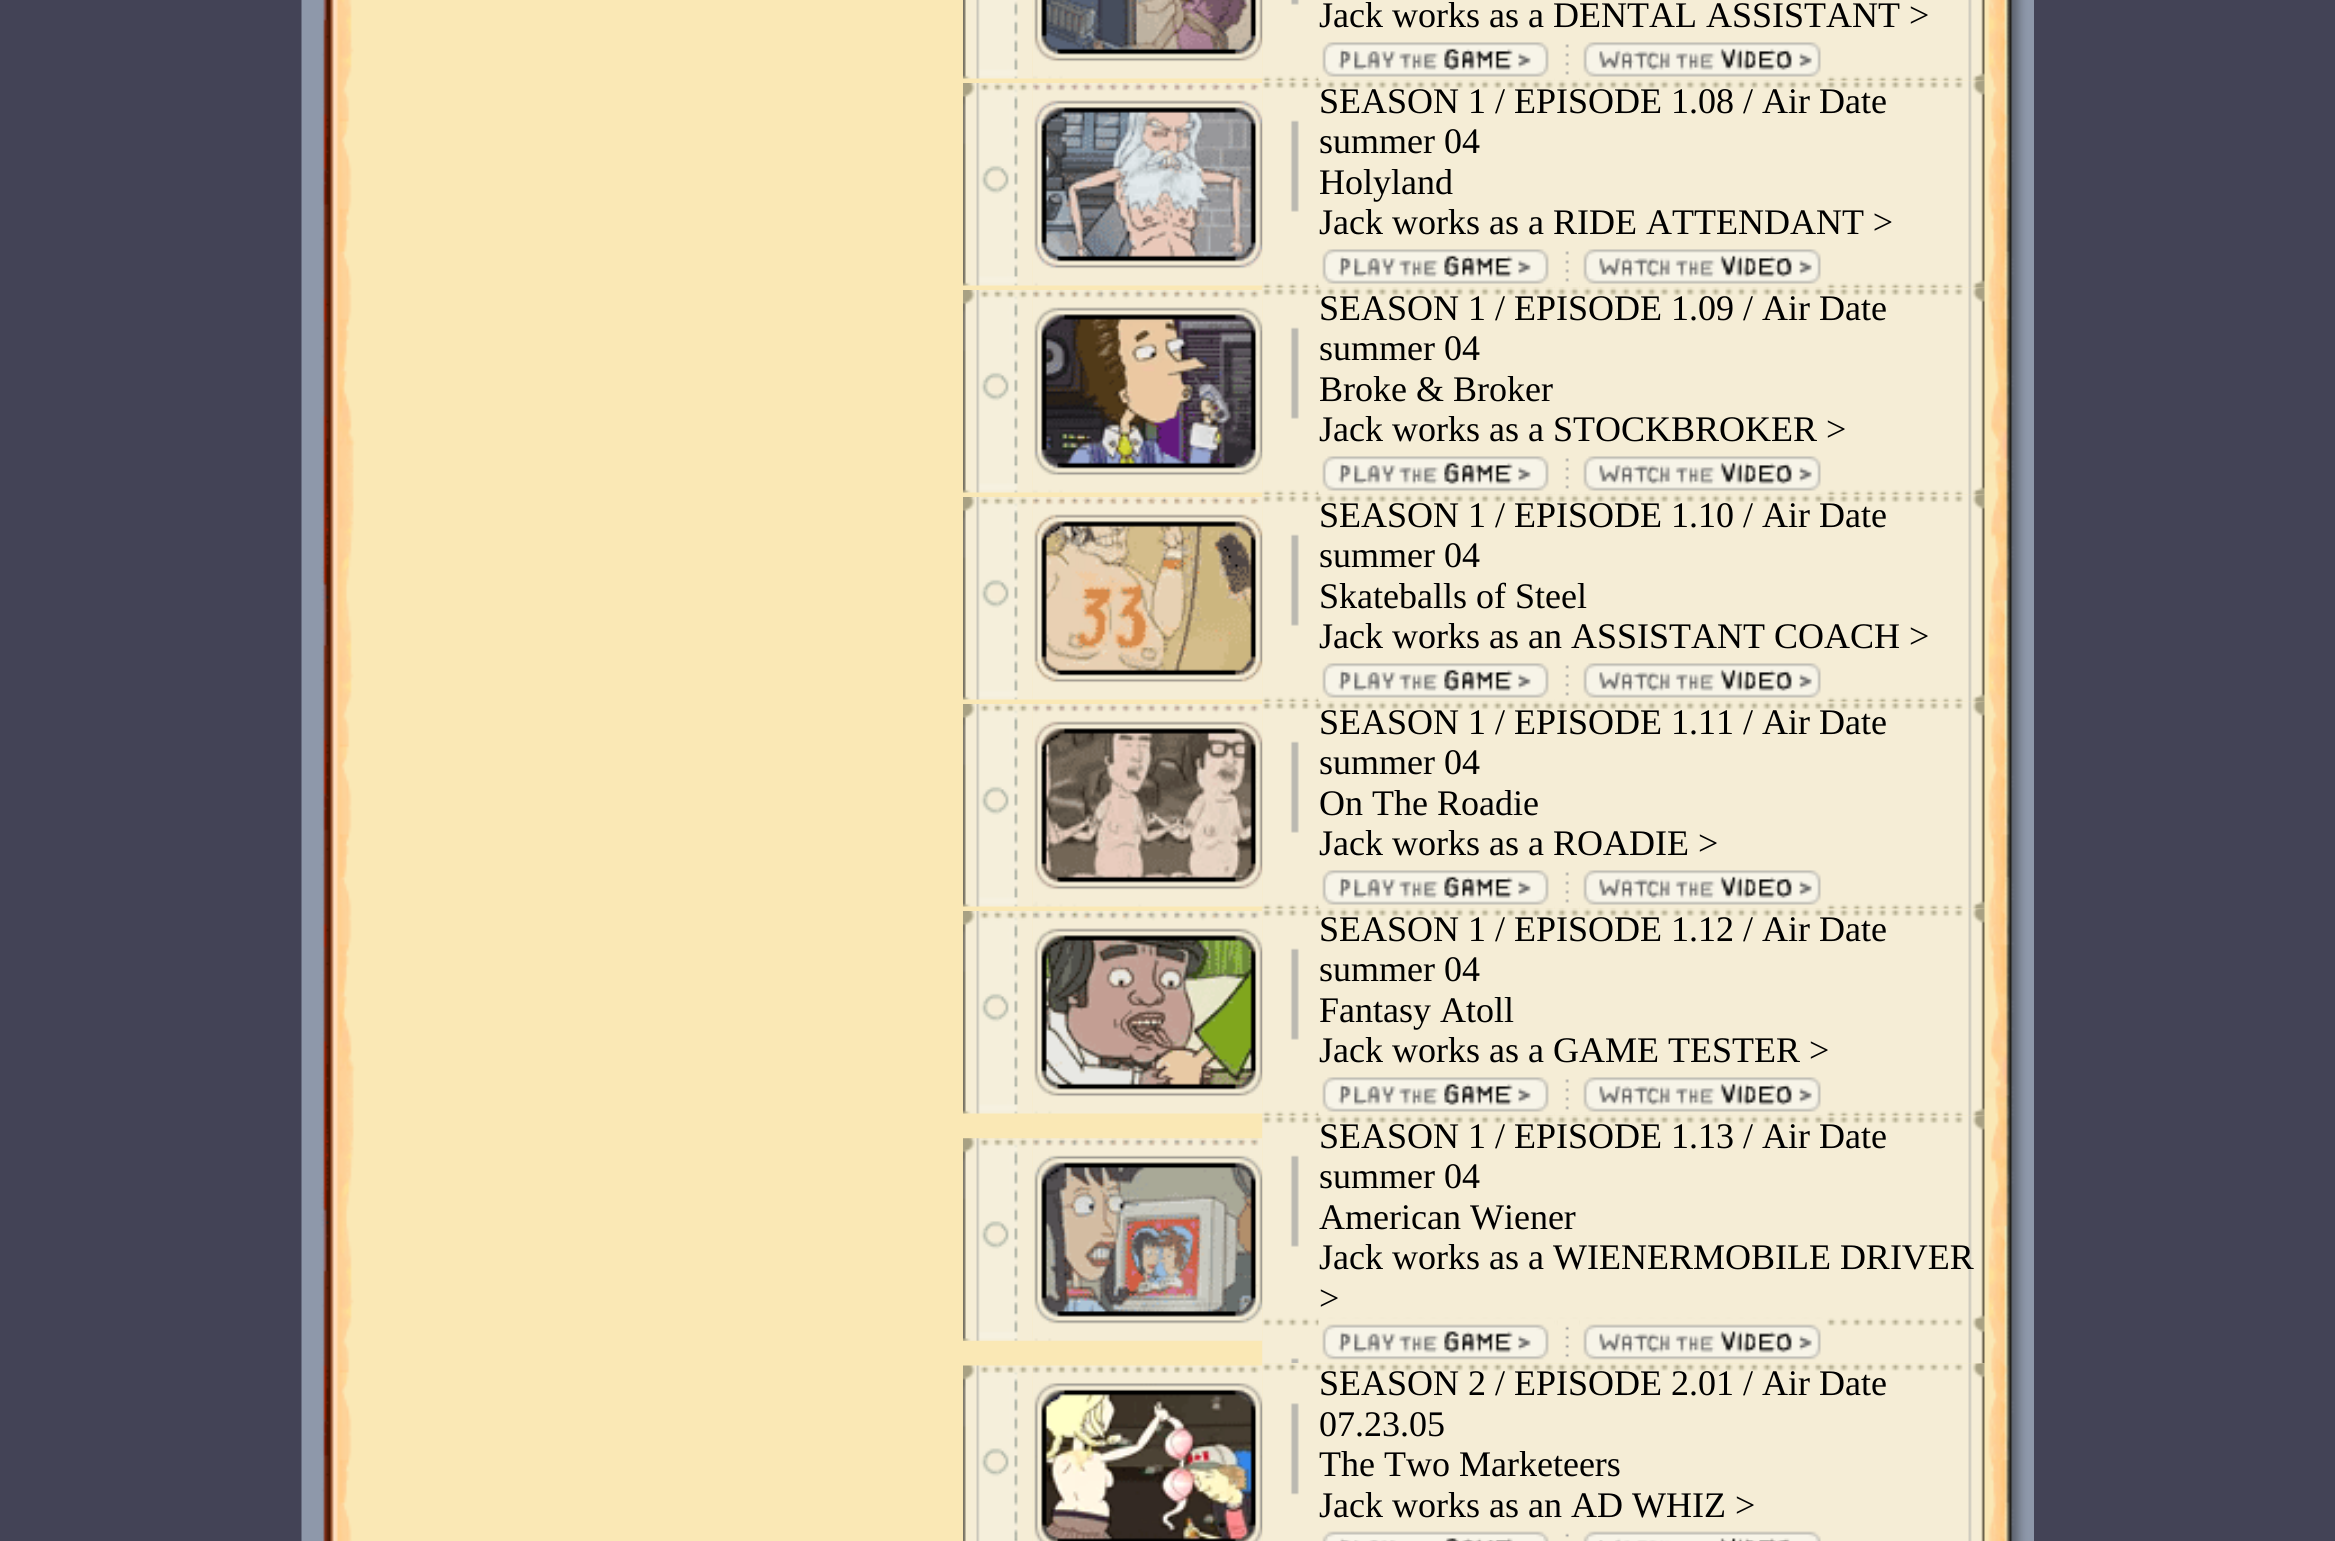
import math
import cairo

surface = cairo.ImageSurface(cairo.FORMAT_RGB24, 2335, 1541)
ctx = cairo.Context(surface)
options = cairo.FontOptions()
options.set_hint_metrics(cairo.HINT_METRICS_OFF)
options.set_hint_style(cairo.HINT_STYLE_NONE)
ctx.set_font_options(options)
ctx.set_miter_limit(4)


def set_color(code):
    ctx.set_source_rgb(*(v / 255 for v in bytes.fromhex(code[-6:])))


def draw_text(x, y, s, family, size, color, bold=False, italic=False):
    ctx.select_font_face(family, cairo.FONT_SLANT_ITALIC if italic else cairo.FONT_SLANT_NORMAL, cairo.FONT_WEIGHT_BOLD if bold else cairo.FONT_WEIGHT_NORMAL)
    ctx.set_font_size(size)
    set_color(color)
    ctx.move_to(x, y)
    ctx.show_text(s)


def draw_image(path, x, y, w, h):
    ctx.save()
    ctx.set_source_surface(cairo.ImageSurface.create_from_png(path), x, y)
    ctx.rectangle(x, y, w, h)
    ctx.fill()
    ctx.restore()


set_color("#434356")
ctx.paint()
draw_image("assets/img1.png", 301, 0, 1733, 1541)
draw_image("assets/img2.png", 963, 0, 70, 79)
draw_image("assets/img4.png", 1262, 0, 723, 81)
draw_image("assets/img3.png", 1033, 0, 230, 79)
draw_text(1319, 27, "Jack works as a DENTAL ASSISTANT >", "Liberation Serif", 36, "#000000")
draw_image("assets/img10.png", 1262, 80, 723, 208)
draw_image("assets/img5.png", 1318, 42, 236, 39)
draw_image("assets/img6.png", 1555, 44, 24, 37)
draw_image("assets/img7.png", 1580, 42, 247, 39)
draw_image("assets/img8.png", 963, 83, 70, 203)
draw_image("assets/img9.png", 1032, 83, 231, 203)
draw_text(1319, 113, "SEASON 1 / EPISODE 1.08 / Air Date", "Liberation Serif", 36, "#000000")
draw_text(1319, 153, "summer 04", "Liberation Serif", 36, "#000000")
draw_text(1319, 194, "Holyland", "Liberation Serif", 36, "#000000")
draw_text(1319, 234, "Jack works as a RIDE ATTENDANT >", "Liberation Serif", 36, "#000000")
draw_image("assets/img12.png", 1262, 287, 723, 208)
draw_image("assets/img5.png", 1318, 249, 236, 39)
draw_image("assets/img6.png", 1555, 251, 24, 37)
draw_image("assets/img7.png", 1580, 249, 247, 39)
draw_image("assets/img8.png", 963, 290, 70, 203)
draw_image("assets/img11.png", 1032, 290, 231, 203)
draw_text(1319, 320, "SEASON 1 / EPISODE 1.09 / Air Date", "Liberation Serif", 36, "#000000")
draw_text(1319, 360, "summer 04", "Liberation Serif", 36, "#000000")
draw_text(1319, 401, "Broke & Broker", "Liberation Serif", 36, "#000000")
draw_text(1319, 441, "Jack works as a STOCKBROKER >", "Liberation Serif", 36, "#000000")
draw_image("assets/img14.png", 1262, 494, 723, 208)
draw_image("assets/img5.png", 1318, 456, 236, 39)
draw_image("assets/img6.png", 1555, 458, 24, 37)
draw_image("assets/img7.png", 1580, 456, 247, 39)
draw_image("assets/img8.png", 963, 497, 70, 203)
draw_image("assets/img13.png", 1032, 497, 231, 203)
draw_text(1319, 527, "SEASON 1 / EPISODE 1.10 / Air Date", "Liberation Serif", 36, "#000000")
draw_text(1319, 567, "summer 04", "Liberation Serif", 36, "#000000")
draw_text(1319, 608, "Skateballs of Steel", "Liberation Serif", 36, "#000000")
draw_text(1319, 648, "Jack works as an ASSISTANT COACH >", "Liberation Serif", 36, "#000000")
draw_image("assets/img16.png", 1262, 701, 723, 208)
draw_image("assets/img5.png", 1318, 663, 236, 39)
draw_image("assets/img6.png", 1555, 665, 24, 37)
draw_image("assets/img7.png", 1580, 663, 247, 39)
draw_image("assets/img8.png", 963, 704, 70, 203)
draw_image("assets/img15.png", 1032, 704, 231, 203)
draw_text(1319, 734, "SEASON 1 / EPISODE 1.11 / Air Date", "Liberation Serif", 36, "#000000")
draw_text(1319, 774, "summer 04", "Liberation Serif", 36, "#000000")
draw_text(1319, 815, "On The Roadie", "Liberation Serif", 36, "#000000")
draw_text(1319, 855, "Jack works as a ROADIE >", "Liberation Serif", 36, "#000000")
draw_image("assets/img20.png", 1262, 908, 723, 208)
draw_image("assets/img17.png", 1318, 870, 236, 39)
draw_image("assets/img6.png", 1555, 872, 24, 37)
draw_image("assets/img18.png", 1580, 870, 247, 39)
draw_image("assets/img8.png", 963, 911, 70, 203)
draw_image("assets/img19.png", 1032, 911, 231, 203)
draw_text(1319, 941, "SEASON 1 / EPISODE 1.12 / Air Date", "Liberation Serif", 36, "#000000")
draw_text(1319, 981, "summer 04", "Liberation Serif", 36, "#000000")
draw_text(1319, 1022, "Fantasy Atoll", "Liberation Serif", 36, "#000000")
draw_text(1319, 1062, "Jack works as a GAME TESTER >", "Liberation Serif", 36, "#000000")
draw_image("assets/img23.png", 1262, 1115, 723, 249)
draw_image("assets/img5.png", 1318, 1077, 236, 39)
draw_image("assets/img6.png", 1555, 1079, 24, 37)
draw_image("assets/img7.png", 1580, 1077, 247, 39)
draw_image("assets/img21.png", 963, 1138, 70, 203)
draw_image("assets/img22.png", 1032, 1138, 231, 203)
draw_text(1319, 1148, "SEASON 1 / EPISODE 1.13 / Air Date", "Liberation Serif", 36, "#000000")
draw_text(1319, 1188, "summer 04", "Liberation Serif", 36, "#000000")
draw_text(1319, 1229, "American Wiener", "Liberation Serif", 36, "#000000")
draw_text(1319, 1269, "Jack works as a WIENERMOBILE DRIVER", "Liberation Serif", 36, "#000000")
draw_text(1319, 1310, ">", "Liberation Serif", 36, "#000000")
draw_image("assets/img24.png", 1318, 1318, 236, 42)
draw_image("assets/img25.png", 1558, 1318, 21, 40)
draw_image("assets/img26.png", 1583, 1318, 244, 42)
draw_image("assets/img27.png", 963, 1365, 70, 176)
draw_image("assets/img29.png", 1262, 1363, 723, 178)
draw_image("assets/img28.png", 1032, 1365, 231, 176)
draw_text(1319, 1395, "SEASON 2 / EPISODE 2.01 / Air Date", "Liberation Serif", 36, "#000000")
draw_text(1319, 1436, "07.23.05", "Liberation Serif", 36, "#000000")
draw_text(1319, 1476, "The Two Marketeers", "Liberation Serif", 36, "#000000")
draw_text(1319, 1517, "Jack works as an AD WHIZ >", "Liberation Serif", 36, "#000000")
draw_image("assets/img30.png", 1322, 1531, 227, 10)
draw_image("assets/img31.png", 1565, 1533, 4, 5)
draw_image("assets/img32.png", 1583, 1531, 238, 10)
surface.write_to_png("output.png")
